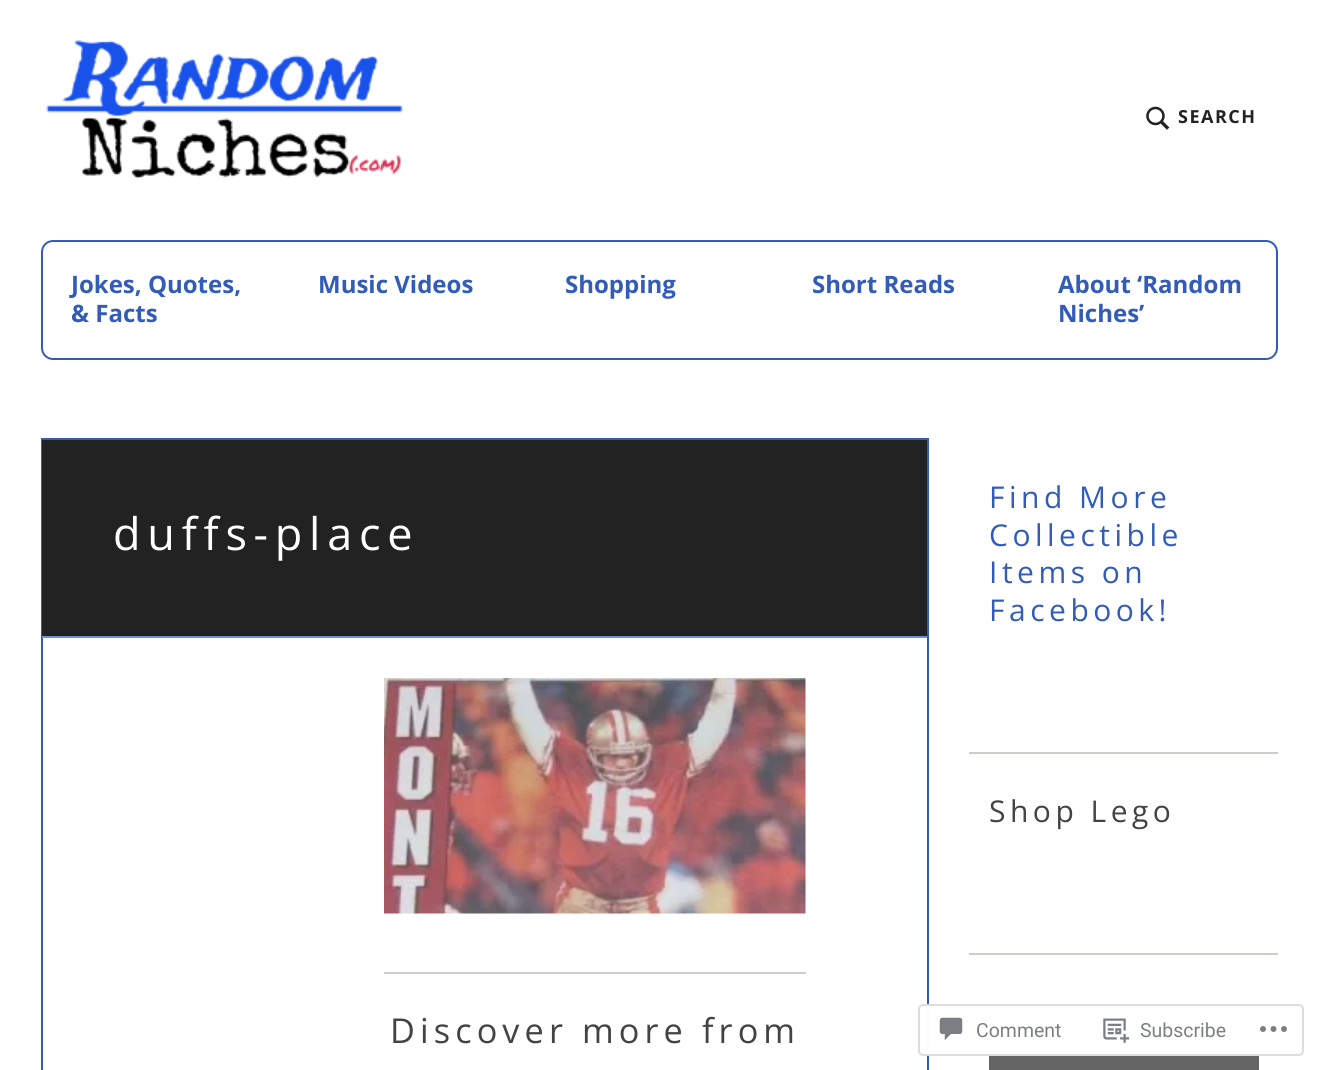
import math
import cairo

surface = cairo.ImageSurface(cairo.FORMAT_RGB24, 1318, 1070)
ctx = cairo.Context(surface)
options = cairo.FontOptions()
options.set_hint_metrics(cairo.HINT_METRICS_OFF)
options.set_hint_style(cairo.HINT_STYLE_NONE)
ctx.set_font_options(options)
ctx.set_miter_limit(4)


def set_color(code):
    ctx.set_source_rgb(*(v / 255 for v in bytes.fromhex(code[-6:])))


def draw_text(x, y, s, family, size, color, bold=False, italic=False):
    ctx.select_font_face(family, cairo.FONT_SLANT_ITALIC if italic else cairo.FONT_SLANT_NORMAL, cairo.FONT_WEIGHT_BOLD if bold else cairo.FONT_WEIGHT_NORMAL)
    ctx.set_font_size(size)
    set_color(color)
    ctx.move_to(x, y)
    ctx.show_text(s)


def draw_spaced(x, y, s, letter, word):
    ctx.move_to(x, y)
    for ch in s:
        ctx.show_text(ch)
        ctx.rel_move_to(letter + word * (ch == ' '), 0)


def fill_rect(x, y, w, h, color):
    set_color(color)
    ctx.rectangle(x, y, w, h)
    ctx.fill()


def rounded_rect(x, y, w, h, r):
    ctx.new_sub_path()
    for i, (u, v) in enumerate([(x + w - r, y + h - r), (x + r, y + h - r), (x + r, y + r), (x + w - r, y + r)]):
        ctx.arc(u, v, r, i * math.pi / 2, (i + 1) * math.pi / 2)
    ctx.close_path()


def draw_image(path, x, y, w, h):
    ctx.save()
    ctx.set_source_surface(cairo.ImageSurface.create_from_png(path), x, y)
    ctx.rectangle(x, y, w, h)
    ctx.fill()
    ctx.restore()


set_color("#ffffff")
ctx.paint()
draw_image("assets/img1.png", 46, 40, 357, 139)
draw_image("assets/img2.png", 1146, 106, 24, 24)
ctx.select_font_face("Open Sans", cairo.FONT_SLANT_NORMAL, cairo.FONT_WEIGHT_BOLD)
ctx.set_font_size(18)
set_color("#222222")
draw_spaced(1178, 123, "SEARCH", 1.5, 0)
rounded_rect(42, 241, 1235, 118, 11)
set_color("#325cb8")
ctx.stroke()
draw_text(71, 293, "Jokes, Quotes,", "Open Sans", 24, "#325cb8", bold=True)
draw_text(71, 322, "& Facts", "Open Sans", 24, "#325cb8", bold=True)
draw_text(318, 293, "Music Videos", "Open Sans", 24, "#325cb8", bold=True)
draw_text(565, 293, "Shopping", "Open Sans", 24, "#325cb8", bold=True)
draw_text(812, 293, "Short Reads", "Open Sans", 24, "#325cb8", bold=True)
draw_text(1058, 293, "About ‘Random", "Open Sans", 24, "#325cb8", bold=True)
draw_text(1058, 322, "Niches’", "Open Sans", 24, "#325cb8", bold=True)
ctx.rectangle(42, 439, 886, 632)
ctx.stroke()
fill_rect(42, 440, 885, 196, "#222222")
ctx.select_font_face("Open Sans")
ctx.set_font_size(45)
set_color("#ffffff")
draw_spaced(113, 550, "duffs-place", 6.75, 0)
fill_rect(42, 636, 885, 2, "#7090d5")
draw_image("assets/img3.png", 384, 678, 422, 236)
fill_rect(384, 972, 422, 2, "#cccccc")
ctx.set_font_size(34.25)
set_color("#434343")
draw_spaced(390, 1043, "Discover more from", 5.1, 0)
ctx.set_font_size(30)
set_color("#325cb8")
draw_spaced(989, 508, "Find More", 4.5, 0)
draw_spaced(989, 546, "Collectible", 4.5, 0)
draw_spaced(989, 583, "Items on", 4.5, 0)
draw_spaced(989, 621, "Facebook!", 4.5, 0)
fill_rect(969, 752, 309, 2, "#cfccc7")
set_color("#434343")
draw_spaced(989, 822, "Shop Lego", 4.5, 0)
fill_rect(969, 953, 309, 2, "#cfccc7")
fill_rect(989, 1055, 270, 15, "#646464")
ctx.set_source_rgba(1, 1, 1, 0.98)
rounded_rect(918, 1004, 386, 52, 5)
ctx.fill()
rounded_rect(919, 1005, 384, 50, 4)
ctx.set_source_rgba(0.863, 0.863, 0.871, 0.98)
ctx.stroke()
draw_image("assets/img4.png", 939, 1017, 24, 24)
draw_text(976, 1037, "Comment", "Roboto", 19.5, "#7b7f84")
draw_image("assets/img5.png", 1103, 1018, 27, 25)
draw_text(1140, 1037, "Subscribe", "Roboto", 19.5, "#7b7f84")
draw_image("assets/img6.png", 1260, 1026, 27, 6)
surface.write_to_png("output.png")
